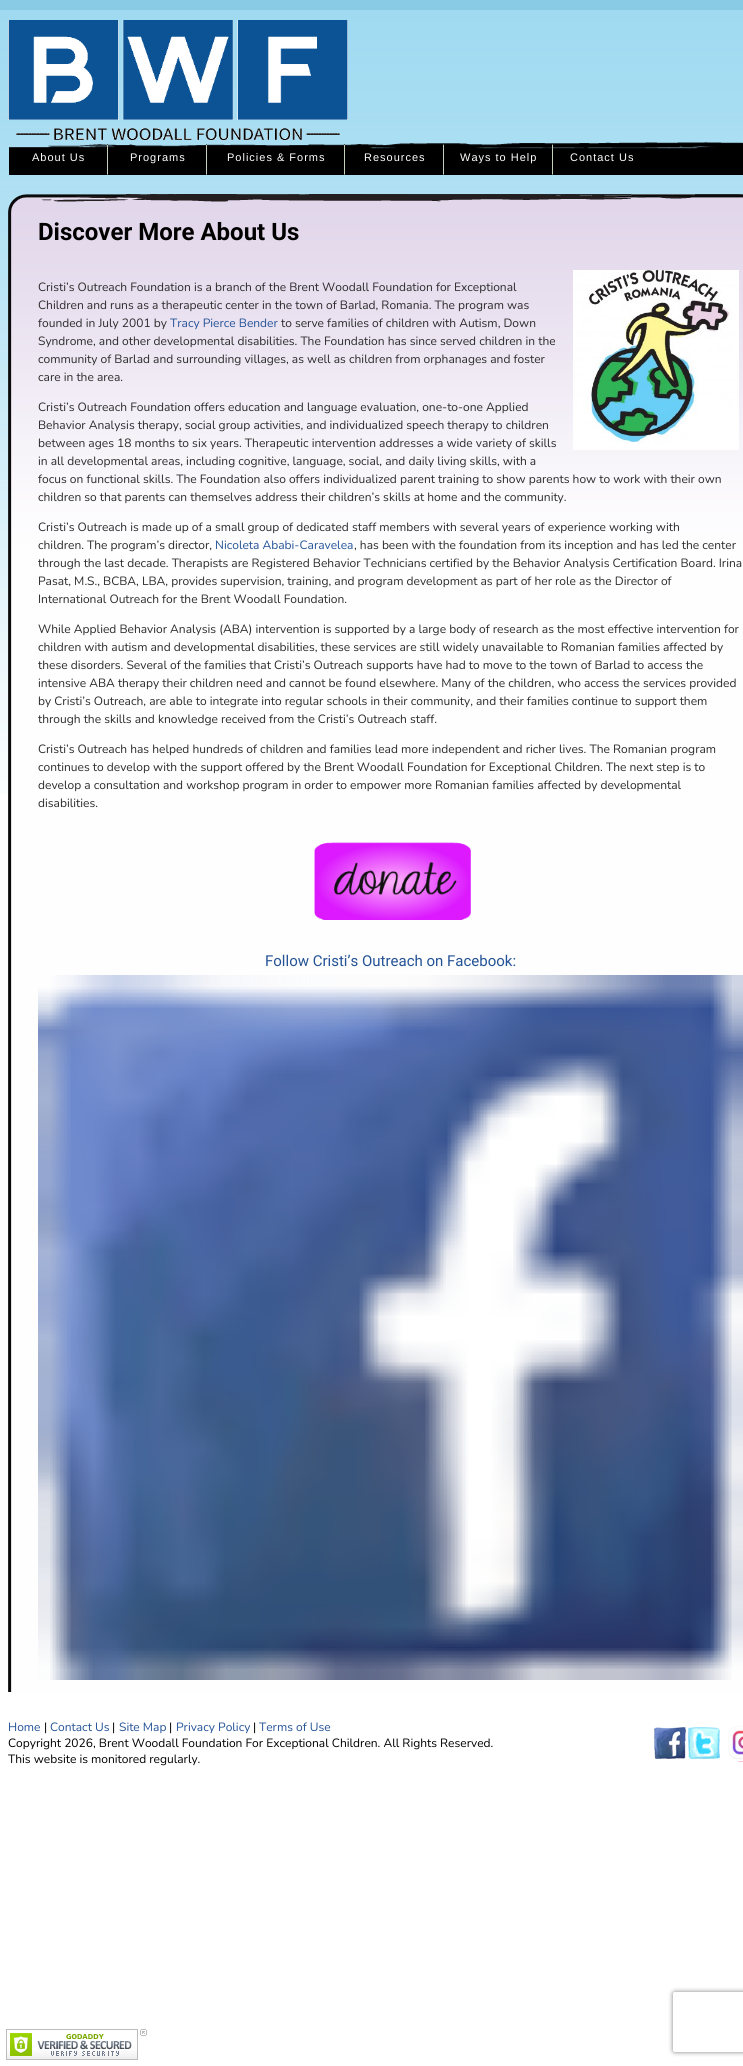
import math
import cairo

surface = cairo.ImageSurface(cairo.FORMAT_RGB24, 743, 2066)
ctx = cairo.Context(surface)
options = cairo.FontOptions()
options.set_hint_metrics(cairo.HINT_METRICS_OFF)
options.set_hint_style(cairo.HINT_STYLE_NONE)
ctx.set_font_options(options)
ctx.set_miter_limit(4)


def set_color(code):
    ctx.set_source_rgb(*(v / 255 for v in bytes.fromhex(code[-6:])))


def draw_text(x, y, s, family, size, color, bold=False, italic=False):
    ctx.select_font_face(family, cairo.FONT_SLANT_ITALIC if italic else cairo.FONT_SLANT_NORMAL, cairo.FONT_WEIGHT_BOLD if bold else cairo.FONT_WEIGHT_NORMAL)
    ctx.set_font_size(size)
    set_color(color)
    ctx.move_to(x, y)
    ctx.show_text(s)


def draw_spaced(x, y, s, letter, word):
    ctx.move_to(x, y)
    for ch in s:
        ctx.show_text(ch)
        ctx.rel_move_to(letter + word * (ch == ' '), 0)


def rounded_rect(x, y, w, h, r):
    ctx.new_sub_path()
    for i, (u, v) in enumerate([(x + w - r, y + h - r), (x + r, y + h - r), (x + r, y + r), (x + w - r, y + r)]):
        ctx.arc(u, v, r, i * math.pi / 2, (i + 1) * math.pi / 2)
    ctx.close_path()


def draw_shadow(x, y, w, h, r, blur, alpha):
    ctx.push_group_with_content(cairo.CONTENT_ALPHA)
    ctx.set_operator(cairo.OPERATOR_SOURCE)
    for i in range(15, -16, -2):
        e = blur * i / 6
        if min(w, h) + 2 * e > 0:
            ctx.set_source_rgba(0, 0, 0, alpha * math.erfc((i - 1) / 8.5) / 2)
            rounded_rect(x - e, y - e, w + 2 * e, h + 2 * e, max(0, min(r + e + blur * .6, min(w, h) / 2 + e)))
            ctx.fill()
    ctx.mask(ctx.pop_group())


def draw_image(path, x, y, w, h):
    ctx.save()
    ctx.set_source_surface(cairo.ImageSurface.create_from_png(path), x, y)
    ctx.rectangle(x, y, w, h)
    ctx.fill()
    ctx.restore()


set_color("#ffffff")
ctx.paint()
draw_image("assets/img1.png", 0, 0, 743, 794)
draw_image("assets/img2.png", 8, 20, 340, 120)
draw_image("assets/img3.png", 9, 142, 734, 33)
draw_image("assets/img4.png", 107, 144, 1, 31)
ctx.select_font_face("Liberation Sans")
ctx.set_font_size(11)
set_color("#ffffff")
draw_spaced(32, 161, "About Us", 1, 0)
draw_image("assets/img4.png", 206, 144, 1, 31)
draw_spaced(130, 161, "Programs", 1, 0)
draw_image("assets/img4.png", 344, 144, 1, 31)
draw_spaced(227, 161, "Policies & Forms", 1, 0)
draw_image("assets/img4.png", 443, 144, 1, 31)
draw_spaced(364, 161, "Resources", 1, 0)
draw_image("assets/img4.png", 552, 144, 1, 31)
draw_spaced(460, 161, "Ways to Help", 1, 0)
draw_spaced(570, 161, "Contact Us", 1, 0)
draw_image("assets/img5.png", 8, 194, 735, 1498)
draw_text(38, 240, "Discover More About Us", "Roboto", 24, "#000000", bold=True)
draw_text(38, 291, "Cristi’s Outreach Foundation is a branch of the Brent Woodall Foundation for Exceptional", "Nunito", 12, "#2b2b2b")
draw_text(38, 309, "Children and runs as a therapeutic center in the town of Barlad, Romania. The program was", "Nunito", 12, "#2b2b2b")
draw_text(38, 327, "founded in July 2001 by", "Nunito", 12, "#2b2b2b")
draw_text(170, 327, "Tracy Pierce Bender", "Nunito", 12, "#235296")
draw_text(281, 327, "to serve families of children with Autism, Down", "Nunito", 12, "#2b2b2b")
draw_text(38, 345, "Syndrome, and other developmental disabilities. The Foundation has since served children in the", "Nunito", 12, "#2b2b2b")
draw_text(38, 363, "community of Barlad and surrounding villages, as well as children from orphanages and foster", "Nunito", 12, "#2b2b2b")
draw_text(38, 381, "care in the area.", "Nunito", 12, "#2b2b2b")
draw_image("assets/img6.png", 573, 270, 166, 180)
draw_text(38, 411, "Cristi’s Outreach Foundation offers education and language evaluation, one-to-one Applied", "Nunito", 12, "#2b2b2b")
draw_text(38, 429, "Behavior Analysis therapy, social group activities, and individualized speech therapy to children", "Nunito", 12, "#2b2b2b")
draw_text(38, 447, "between ages 18 months to six years. Therapeutic intervention addresses a wide variety of skills", "Nunito", 12, "#2b2b2b")
draw_text(38, 465, "in all developmental areas, including cognitive, language, social, and daily living skills, with a", "Nunito", 12, "#2b2b2b")
draw_text(38, 483, "focus on functional skills. The Foundation also offers individualized parent training to show parents how to work with their own", "Nunito", 12, "#2b2b2b")
draw_text(38, 501, "children so that parents can themselves address their children’s skills at home and the community.", "Nunito", 12, "#2b2b2b")
draw_text(38, 531, "Cristi’s Outreach is made up of a small group of dedicated staff members with several years of experience working with", "Nunito", 12, "#2b2b2b")
draw_text(38, 549, "children. The program’s director,", "Nunito", 12, "#2b2b2b")
draw_text(215, 549, "Nicoleta Ababi-Caravelea", "Nunito", 12, "#235296")
draw_text(354, 549, ", has been with the foundation from its inception and has led the center", "Nunito", 12, "#2b2b2b")
draw_text(38, 567, "through the last decade. Therapists are Registered Behavior Technicians certified by the Behavior Analysis Certification Board. Irina", "Nunito", 12, "#2b2b2b")
draw_text(38, 585, "Pasat, M.S., BCBA, LBA, provides supervision, training, and program development as part of her role as the Director of", "Nunito", 12, "#2b2b2b")
draw_text(38, 603, "International Outreach for the Brent Woodall Foundation.", "Nunito", 12, "#2b2b2b")
draw_text(38, 633, "While Applied Behavior Analysis (ABA) intervention is supported by a large body of research as the most effective intervention for", "Nunito", 12, "#2b2b2b")
draw_text(38, 651, "children with autism and developmental disabilities, these services are still widely unavailable to Romanian families affected by", "Nunito", 12, "#2b2b2b")
draw_text(38, 669, "these disorders. Several of the families that Cristi’s Outreach supports have had to move to the town of Barlad to access the", "Nunito", 12, "#2b2b2b")
draw_text(38, 687, "intensive ABA therapy their children need and cannot be found elsewhere. Many of the children, who access the services provided", "Nunito", 12, "#2b2b2b")
draw_text(38, 705, "by Cristi’s Outreach, are able to integrate into regular schools in their community, and their families continue to support them", "Nunito", 12, "#2b2b2b")
draw_text(38, 723, "through the skills and knowledge received from the Cristi’s Outreach staff.", "Nunito", 12, "#2b2b2b")
draw_text(38, 753, "Cristi’s Outreach has helped hundreds of children and families lead more independent and richer lives. The Romanian program", "Nunito", 12, "#2b2b2b")
draw_text(38, 771, "continues to develop with the support offered by the Brent Woodall Foundation for Exceptional Children. The next step is to", "Nunito", 12, "#2b2b2b")
draw_text(38, 789, "develop a consultation and workshop program in order to empower more Romanian families affected by developmental", "Nunito", 12, "#2b2b2b")
draw_text(38, 807, "disabilities.", "Nunito", 12, "#2b2b2b")
draw_image("assets/img7.png", 314, 842, 157, 78)
draw_text(265, 966, "Follow Cristi’s Outreach on Facebook:", "Roboto", 15, "#235296")
draw_image("assets/img8.png", 38, 975, 705, 705)
draw_text(8, 1731, "Home", "Nunito", 12, "#235296")
draw_text(44, 1731, "|", "Nunito", 12, "#000000")
draw_text(50, 1731, "Contact Us", "Nunito", 12, "#235296")
draw_text(112, 1731, "|", "Nunito", 12, "#000000")
draw_text(119, 1731, "Site Map", "Nunito", 12, "#235296")
draw_text(169, 1731, "|", "Nunito", 12, "#000000")
draw_text(176, 1731, "Privacy Policy", "Nunito", 12, "#235296")
draw_text(253, 1731, "|", "Nunito", 12, "#000000")
draw_text(259, 1731, "Terms of Use", "Nunito", 12, "#235296")
draw_image("assets/img9.png", 654, 1727, 32, 32)
draw_image("assets/img10.png", 688, 1727, 32, 32)
draw_image("assets/img11.png", 728, 1726, 15, 37)
draw_text(8, 1747, "Copyright 2026, Brent Woodall Foundation For Exceptional Children. All Rights Reserved.", "Nunito", 12, "#000000")
draw_text(8, 1763, "This website is monitored regularly.", "Nunito", 12, "#000000")
draw_image("assets/img12.png", 6, 2029, 141, 31)
ctx.save()
ctx.set_fill_rule(cairo.FILL_RULE_EVEN_ODD)
ctx.new_path()
ctx.move_to(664, 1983)
ctx.line_to(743, 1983)
ctx.line_to(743, 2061)
ctx.line_to(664, 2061)
ctx.close_path()
ctx.move_to(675, 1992)
ctx.line_to(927, 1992)
ctx.curve_to(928, 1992, 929, 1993, 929, 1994)
ctx.line_to(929, 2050)
ctx.curve_to(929, 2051, 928, 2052, 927, 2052)
ctx.line_to(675, 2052)
ctx.curve_to(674, 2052, 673, 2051, 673, 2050)
ctx.line_to(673, 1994)
ctx.curve_to(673, 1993, 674, 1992, 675, 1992)
ctx.close_path()
ctx.clip()
set_color("#808080")
draw_shadow(673, 1992, 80, 60, 2, 2.5, 1)
ctx.restore()
surface.write_to_png("output.png")
